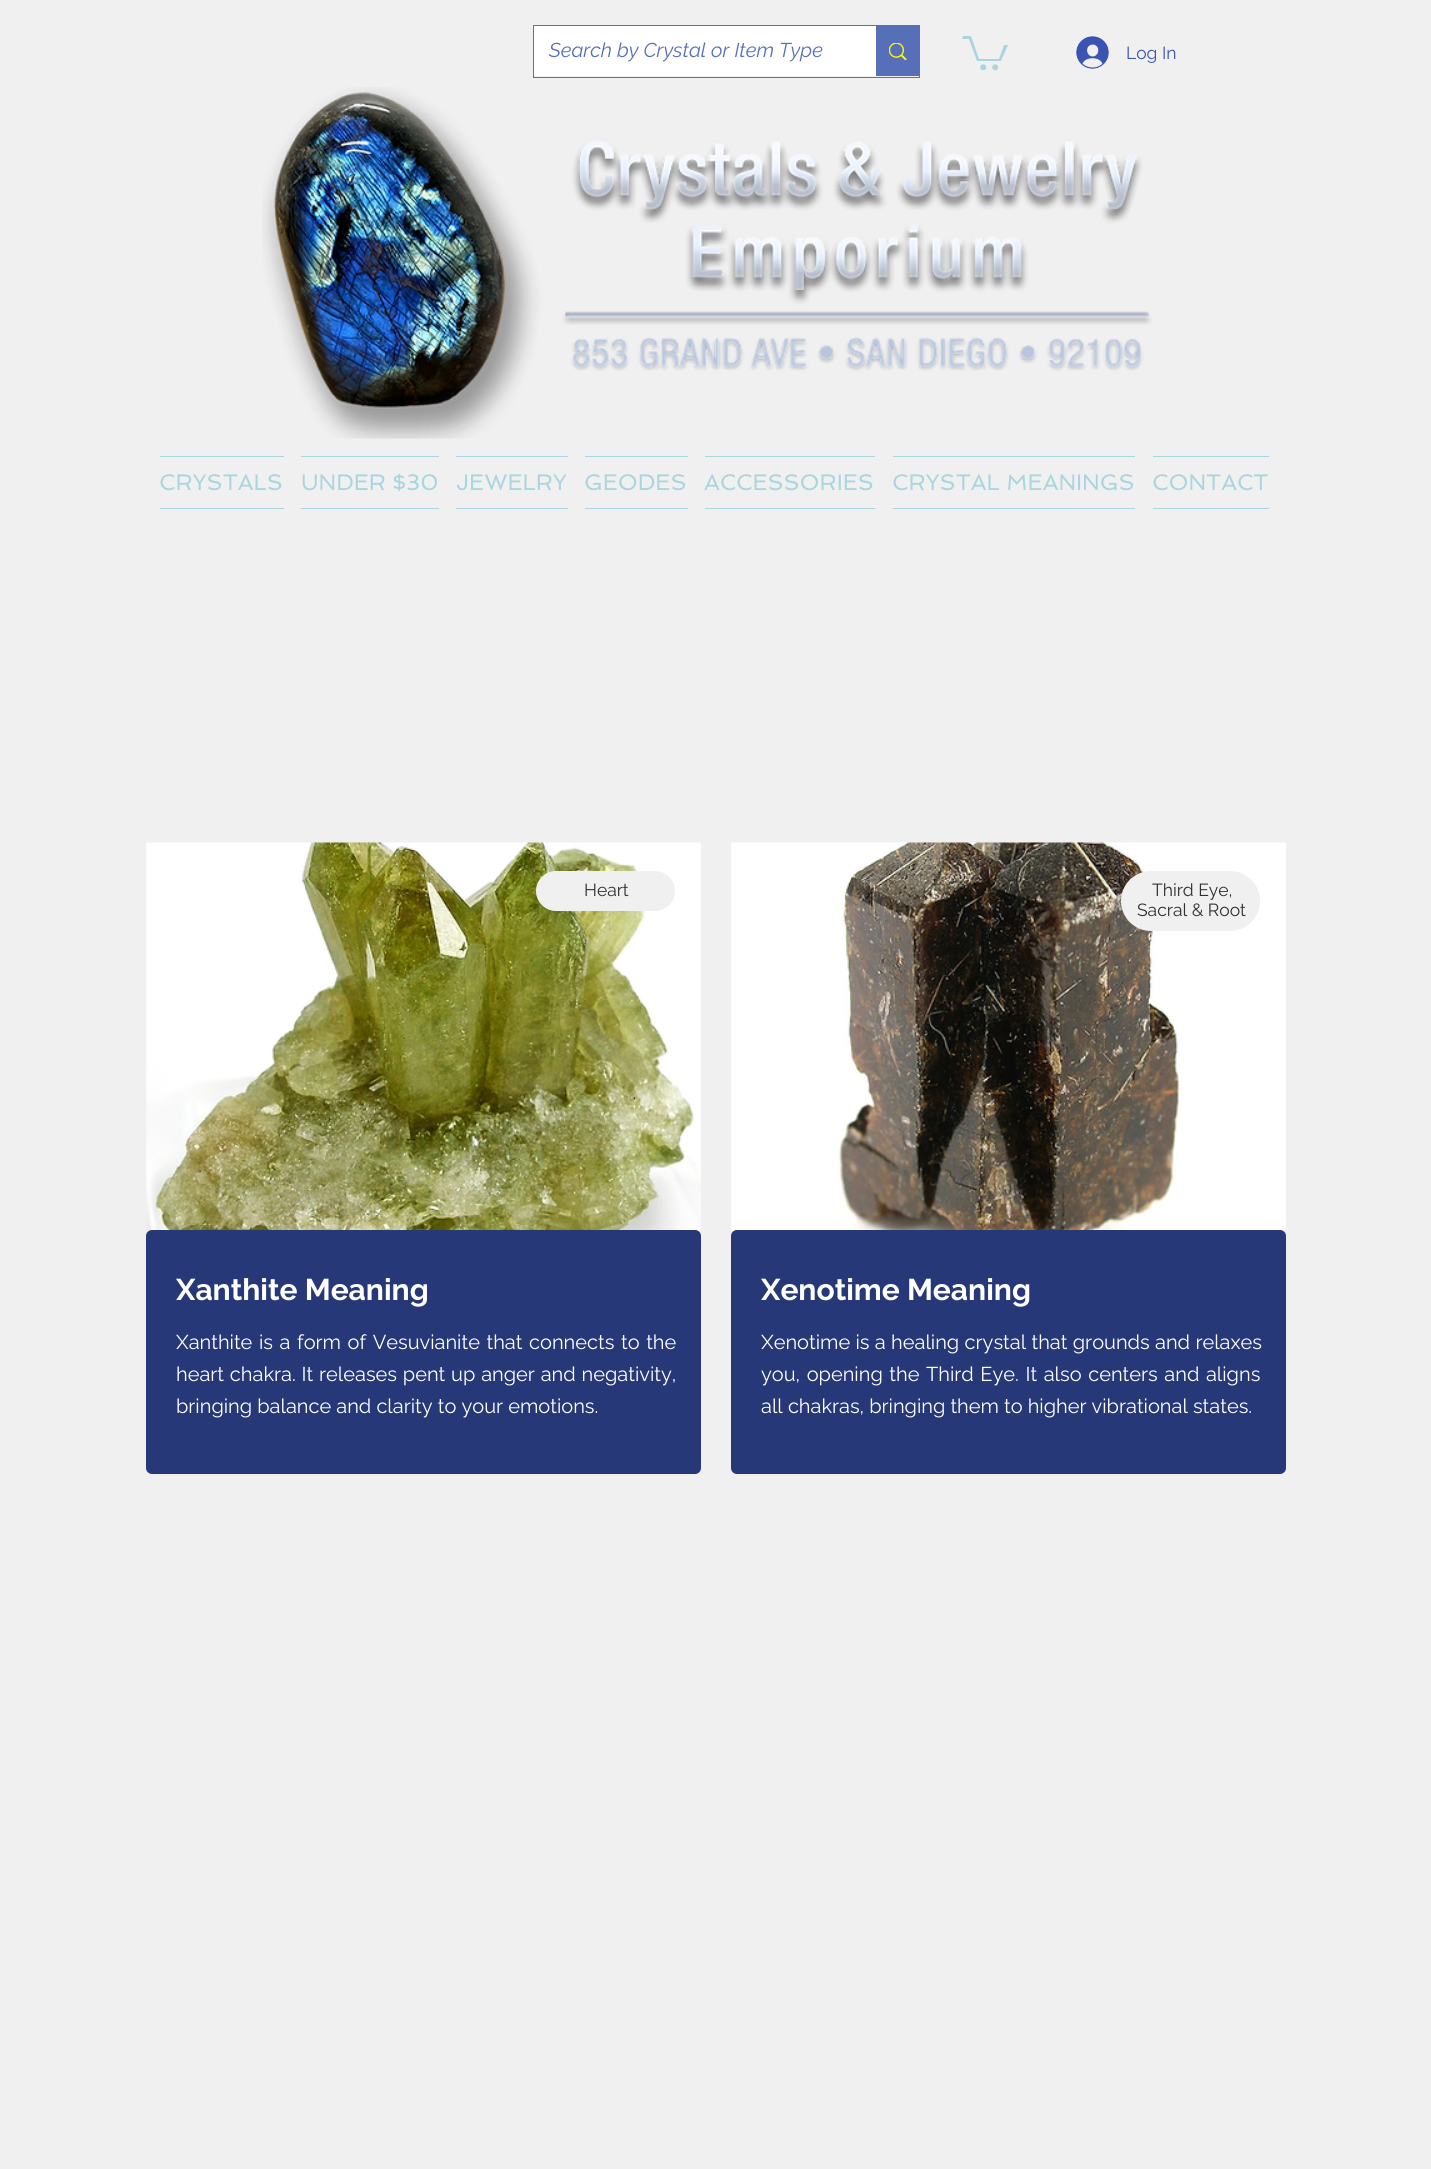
import math
import cairo

surface = cairo.ImageSurface(cairo.FORMAT_RGB24, 1431, 2169)
ctx = cairo.Context(surface)
options = cairo.FontOptions()
options.set_hint_metrics(cairo.HINT_METRICS_OFF)
options.set_hint_style(cairo.HINT_STYLE_NONE)
ctx.set_font_options(options)
ctx.set_miter_limit(4)


def set_color(code):
    ctx.set_source_rgb(*(v / 255 for v in bytes.fromhex(code[-6:])))


def draw_text(x, y, s, family, size, color, bold=False, italic=False):
    ctx.select_font_face(family, cairo.FONT_SLANT_ITALIC if italic else cairo.FONT_SLANT_NORMAL, cairo.FONT_WEIGHT_BOLD if bold else cairo.FONT_WEIGHT_NORMAL)
    ctx.set_font_size(size)
    set_color(color)
    ctx.move_to(x, y)
    ctx.show_text(s)


def draw_spaced(x, y, s, letter, word):
    ctx.move_to(x, y)
    for ch in s:
        ctx.show_text(ch)
        ctx.rel_move_to(letter + word * (ch == ' '), 0)


def fill_rect(x, y, w, h, color):
    set_color(color)
    ctx.rectangle(x, y, w, h)
    ctx.fill()


def rounded_rect(x, y, w, h, r):
    ctx.new_sub_path()
    for i, (u, v) in enumerate([(x + w - r, y + h - r), (x + r, y + h - r), (x + r, y + r), (x + w - r, y + r)]):
        ctx.arc(u, v, r, i * math.pi / 2, (i + 1) * math.pi / 2)
    ctx.close_path()


def draw_image(path, x, y, w, h):
    ctx.save()
    ctx.set_source_surface(cairo.ImageSurface.create_from_png(path), x, y)
    ctx.rectangle(x, y, w, h)
    ctx.fill()
    ctx.restore()


set_color("#f0f0f0")
ctx.paint()
ctx.rectangle(533.5, 25.5, 386, 52)
set_color("#566fb8")
ctx.set_line_width(1)
ctx.stroke()
fill_rect(534, 26, 342, 50, "#ffffff")
draw_text(549, 57, "Search by Crystal or Item Type", "Raleway", 20, "#566fb8", italic=True)
fill_rect(876, 26, 43, 50, "#566fb8")
draw_image("assets/img1.png", 889, 43, 18, 17)
set_color("#a8d5de")
ctx.new_path()
ctx.move_to(1008, 45)
ctx.line_to(1001, 61)
ctx.line_to(977, 61)
ctx.line_to(969, 39)
ctx.line_to(962, 39)
ctx.line_to(963, 36)
ctx.line_to(971, 36)
ctx.line_to(979, 59)
ctx.line_to(999, 59)
ctx.line_to(1004, 45)
ctx.fill()
ctx.arc(995.2, 67.3, 3, 0, 2 * math.pi)
ctx.fill()
ctx.arc(983.2, 67.3, 3, 0, 2 * math.pi)
ctx.fill()
draw_image("assets/img2.png", 1076, 36, 33, 33)
draw_text(1126, 59, "Log In", "Raleway", 17.5, "#3a54b4")
draw_image("assets/img3.png", 262, 87, 890, 352)
fill_rect(160, 456, 124, 1, "#a8d5de")
fill_rect(160, 508, 124, 1, "#a8d5de")
draw_text(159, 490, "CRYSTALS", "Spinnaker", 22.5, "#a8d5de")
fill_rect(301, 456, 138, 1, "#a8d5de")
fill_rect(301, 508, 138, 1, "#a8d5de")
draw_text(301, 490, "UNDER $30", "Spinnaker", 22.5, "#a8d5de")
fill_rect(456, 456, 112, 1, "#a8d5de")
fill_rect(456, 508, 112, 1, "#a8d5de")
draw_text(456, 490, "JEWELRY", "Spinnaker", 22.5, "#a8d5de")
fill_rect(585, 456, 103, 1, "#a8d5de")
fill_rect(585, 508, 103, 1, "#a8d5de")
draw_text(584, 490, "GEODES", "Spinnaker", 22.5, "#a8d5de")
fill_rect(705, 456, 170, 1, "#a8d5de")
fill_rect(705, 508, 170, 1, "#a8d5de")
draw_text(704, 490, "ACCESSORIES", "Spinnaker", 22.5, "#a8d5de")
fill_rect(893, 456, 242, 1, "#a8d5de")
fill_rect(893, 508, 242, 1, "#a8d5de")
draw_text(892, 490, "CRYSTAL MEANINGS", "Spinnaker", 22.5, "#a8d5de")
fill_rect(1153, 456, 116, 1, "#a8d5de")
fill_rect(1153, 508, 116, 1, "#a8d5de")
draw_text(1152, 490, "CONTACT", "Spinnaker", 22.5, "#a8d5de")
draw_image("assets/img4.png", 146, 842, 555, 388)
set_color("#f0f0f0")
rounded_rect(536, 871, 139, 40, 20)
ctx.fill()
draw_text(584, 896, "Heart", "Raleway", 17.5, "#303030")
set_color("#273878")
rounded_rect(146, 1230, 555, 244, 6)
ctx.fill()
draw_text(176, 1300, "Xanthite Meaning", "Raleway", 30, "#ffffff", bold=True)
ctx.select_font_face("Raleway")
ctx.set_font_size(20)
draw_spaced(176, 1349, "Xanthite is a form of Vesuvianite that connects to the", 0, 1.5)
draw_spaced(176, 1381, "heart chakra. It releases pent up anger and negativity,", 0, 0.75)
draw_text(176, 1413, "bringing balance and clarity to your emotions.", "Raleway", 20, "#ffffff")
draw_image("assets/img5.png", 731, 842, 555, 388)
set_color("#f0f0f0")
rounded_rect(1121, 871, 139, 60, 30)
ctx.fill()
draw_text(1152, 896, "Third Eye,", "Raleway", 17.5, "#303030")
draw_text(1137, 916, "Sacral & Root", "Raleway", 17.5, "#303030")
set_color("#273878")
rounded_rect(731, 1230, 555, 244, 6)
ctx.fill()
draw_text(761, 1300, "Xenotime Meaning", "Raleway", 30, "#ffffff", bold=True)
ctx.select_font_face("Raleway")
ctx.set_font_size(20)
draw_spaced(761, 1349, "Xenotime is a healing crystal that grounds and relaxes", 0, 0.25)
draw_spaced(761, 1381, "you, opening the Third Eye. It also centers and aligns", 0, 1.5)
draw_text(761, 1413, "all chakras, bringing them to higher vibrational states.", "Raleway", 20, "#ffffff")
surface.write_to_png("output.png")
